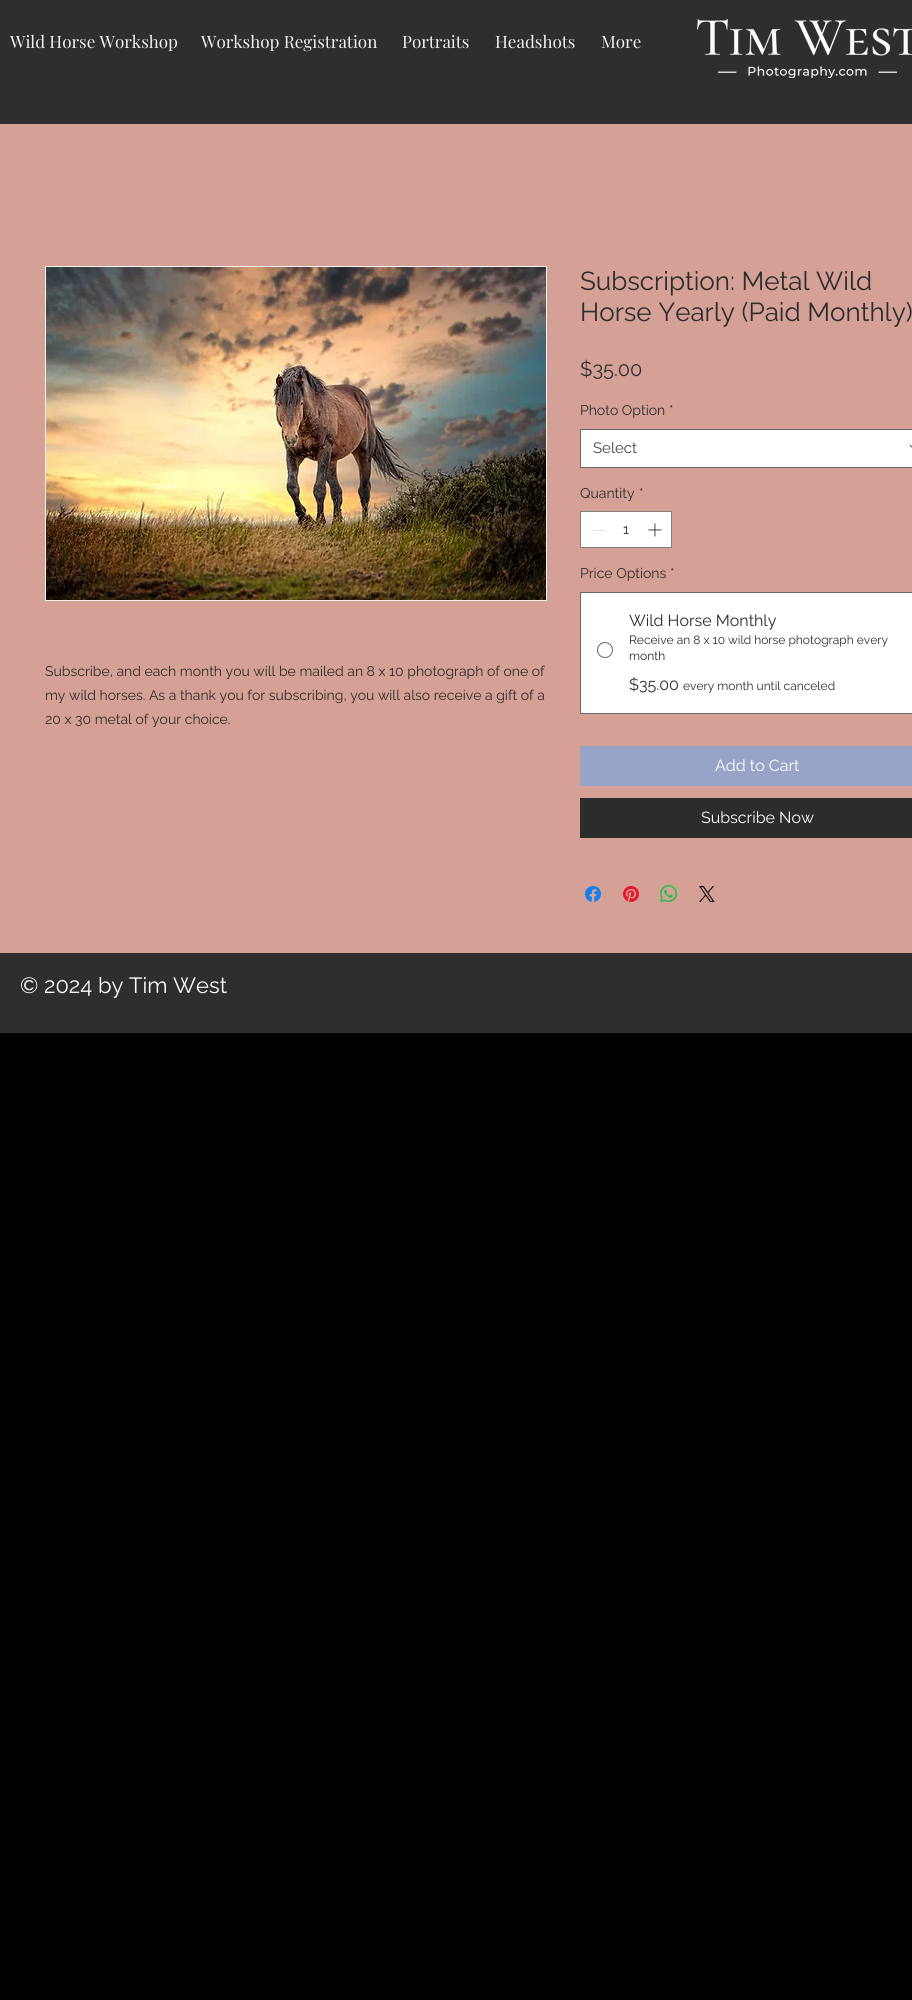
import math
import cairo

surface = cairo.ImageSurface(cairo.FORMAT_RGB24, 912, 2000)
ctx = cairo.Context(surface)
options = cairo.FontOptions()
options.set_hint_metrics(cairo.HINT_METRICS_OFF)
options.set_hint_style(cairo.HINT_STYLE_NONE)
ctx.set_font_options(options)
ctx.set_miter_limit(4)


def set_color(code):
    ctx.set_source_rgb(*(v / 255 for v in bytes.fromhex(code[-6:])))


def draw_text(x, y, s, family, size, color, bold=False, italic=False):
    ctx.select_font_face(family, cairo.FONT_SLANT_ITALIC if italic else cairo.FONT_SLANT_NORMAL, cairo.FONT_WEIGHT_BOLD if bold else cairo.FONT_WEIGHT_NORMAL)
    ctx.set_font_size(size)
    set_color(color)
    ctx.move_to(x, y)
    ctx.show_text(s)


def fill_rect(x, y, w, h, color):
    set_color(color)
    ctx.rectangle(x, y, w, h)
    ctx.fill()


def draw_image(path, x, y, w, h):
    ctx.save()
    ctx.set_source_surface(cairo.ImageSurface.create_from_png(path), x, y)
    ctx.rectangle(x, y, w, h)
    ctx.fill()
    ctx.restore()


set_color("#000000")
ctx.paint()
fill_rect(0, 0, 912, 124, "#2f2e2e")
draw_text(10, 48, "Wild Horse Workshop", "Playfair Display", 17, "#f1f1f1")
draw_text(201, 48, "Workshop Registration", "Playfair Display", 17, "#f1f1f1")
draw_text(402, 48, "Portraits", "Playfair Display", 17, "#f1f1f1")
draw_text(495, 48, "Headshots", "Playfair Display", 17, "#f1f1f1")
draw_text(601, 48, "More", "Playfair Display", 17, "#f1f1f1")
draw_image("assets/img1.png", 697, 19, 215, 59)
fill_rect(0, 124, 912, 829, "#d5a197")
ctx.rectangle(45.5, 266.5, 501, 334)
set_color("#f1f1f1")
ctx.set_line_width(1)
ctx.stroke()
draw_image("assets/img2.png", 46, 267, 500, 333)
draw_text(45, 676, "Subscribe, and each month you will be mailed an 8 x 10 photograph of one of", "Raleway", 14, "#2c2c2b")
draw_text(45, 700, "my wild horses. As a thank you for subscribing, you will also receive a gift of a", "Raleway", 14, "#2c2c2b")
draw_text(45, 724, "20 x 30 metal of your choice.", "Raleway", 14, "#2c2c2b")
draw_text(580, 290, "Subscription: Metal Wild", "Raleway", 26, "#2c2c2b")
draw_text(580, 321, "Horse Yearly (Paid Monthly)", "Raleway", 26, "#2c2c2b")
draw_text(580, 376, "$35.00", "Raleway", 20, "#2c2c2b")
draw_text(580, 415, "Photo Option", "Raleway", 14, "#2c2c2b")
draw_text(669, 415, "*", "Raleway", 14, "#2c2c2b")
set_color("#ffffff")
ctx.rectangle(580.5, 429.5, 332, 38)
ctx.fill_preserve()
set_color("#666666")
ctx.stroke()
draw_text(593, 453, "Select", "Raleway", 15, "#444444")
draw_image("assets/img3.png", 909, 444, 3, 4)
draw_text(580, 498, "Quantity", "Raleway", 14, "#2c2c2b")
draw_text(639, 498, "*", "Raleway", 14, "#2c2c2b")
set_color("#ffffff")
ctx.rectangle(580.5, 511.5, 91, 36)
ctx.fill_preserve()
set_color("#808080")
ctx.stroke()
fill_rect(592, 530, 13, 1, "#e3e3e3")
draw_text(623, 534, "1", "Raleway", 14, "#2c2c2b")
draw_image("assets/img4.png", 648, 523, 14, 14)
draw_text(580, 578, "Price Options", "Raleway", 14, "#2c2c2b")
draw_text(670, 578, "*", "Raleway", 14, "#2c2c2b")
set_color("#ffffff")
ctx.rectangle(580.5, 592.5, 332, 121)
ctx.fill_preserve()
set_color("#666666")
ctx.stroke()
ctx.arc(605, 650, 7.5, 0, 2 * math.pi)
ctx.stroke()
draw_text(629, 626, "Wild Horse Monthly", "Raleway", 16, "#2c2c2b")
draw_text(629, 644, "Receive an 8 x 10 wild horse photograph every", "Raleway", 12, "#2c2c2b")
draw_text(629, 660, "month", "Raleway", 12, "#2c2c2b")
draw_text(629, 690, "$35.00", "Raleway", 16, "#2c2c2b")
draw_text(683, 690, "every month until canceled", "Raleway", 12, "#2c2c2b")
fill_rect(580, 746, 332, 40, "#98a4c7")
draw_text(715, 771, "Add to Cart", "Raleway", 16, "#ffffff")
fill_rect(580, 798, 332, 40, "#2c2c2b")
draw_text(701, 823, "Subscribe Now", "Raleway", 16, "#ffffff")
draw_image("assets/img5.png", 585, 886, 16, 16)
draw_image("assets/img6.png", 623, 886, 16, 16)
draw_image("assets/img7.png", 660, 885, 17, 17)
draw_image("assets/img8.png", 699, 886, 16, 16)
fill_rect(0, 953, 912, 80, "#2f2e2e")
draw_text(20, 993, "© 2024 by Tim West", "Raleway", 22, "#ffffff")
surface.write_to_png("output.png")
